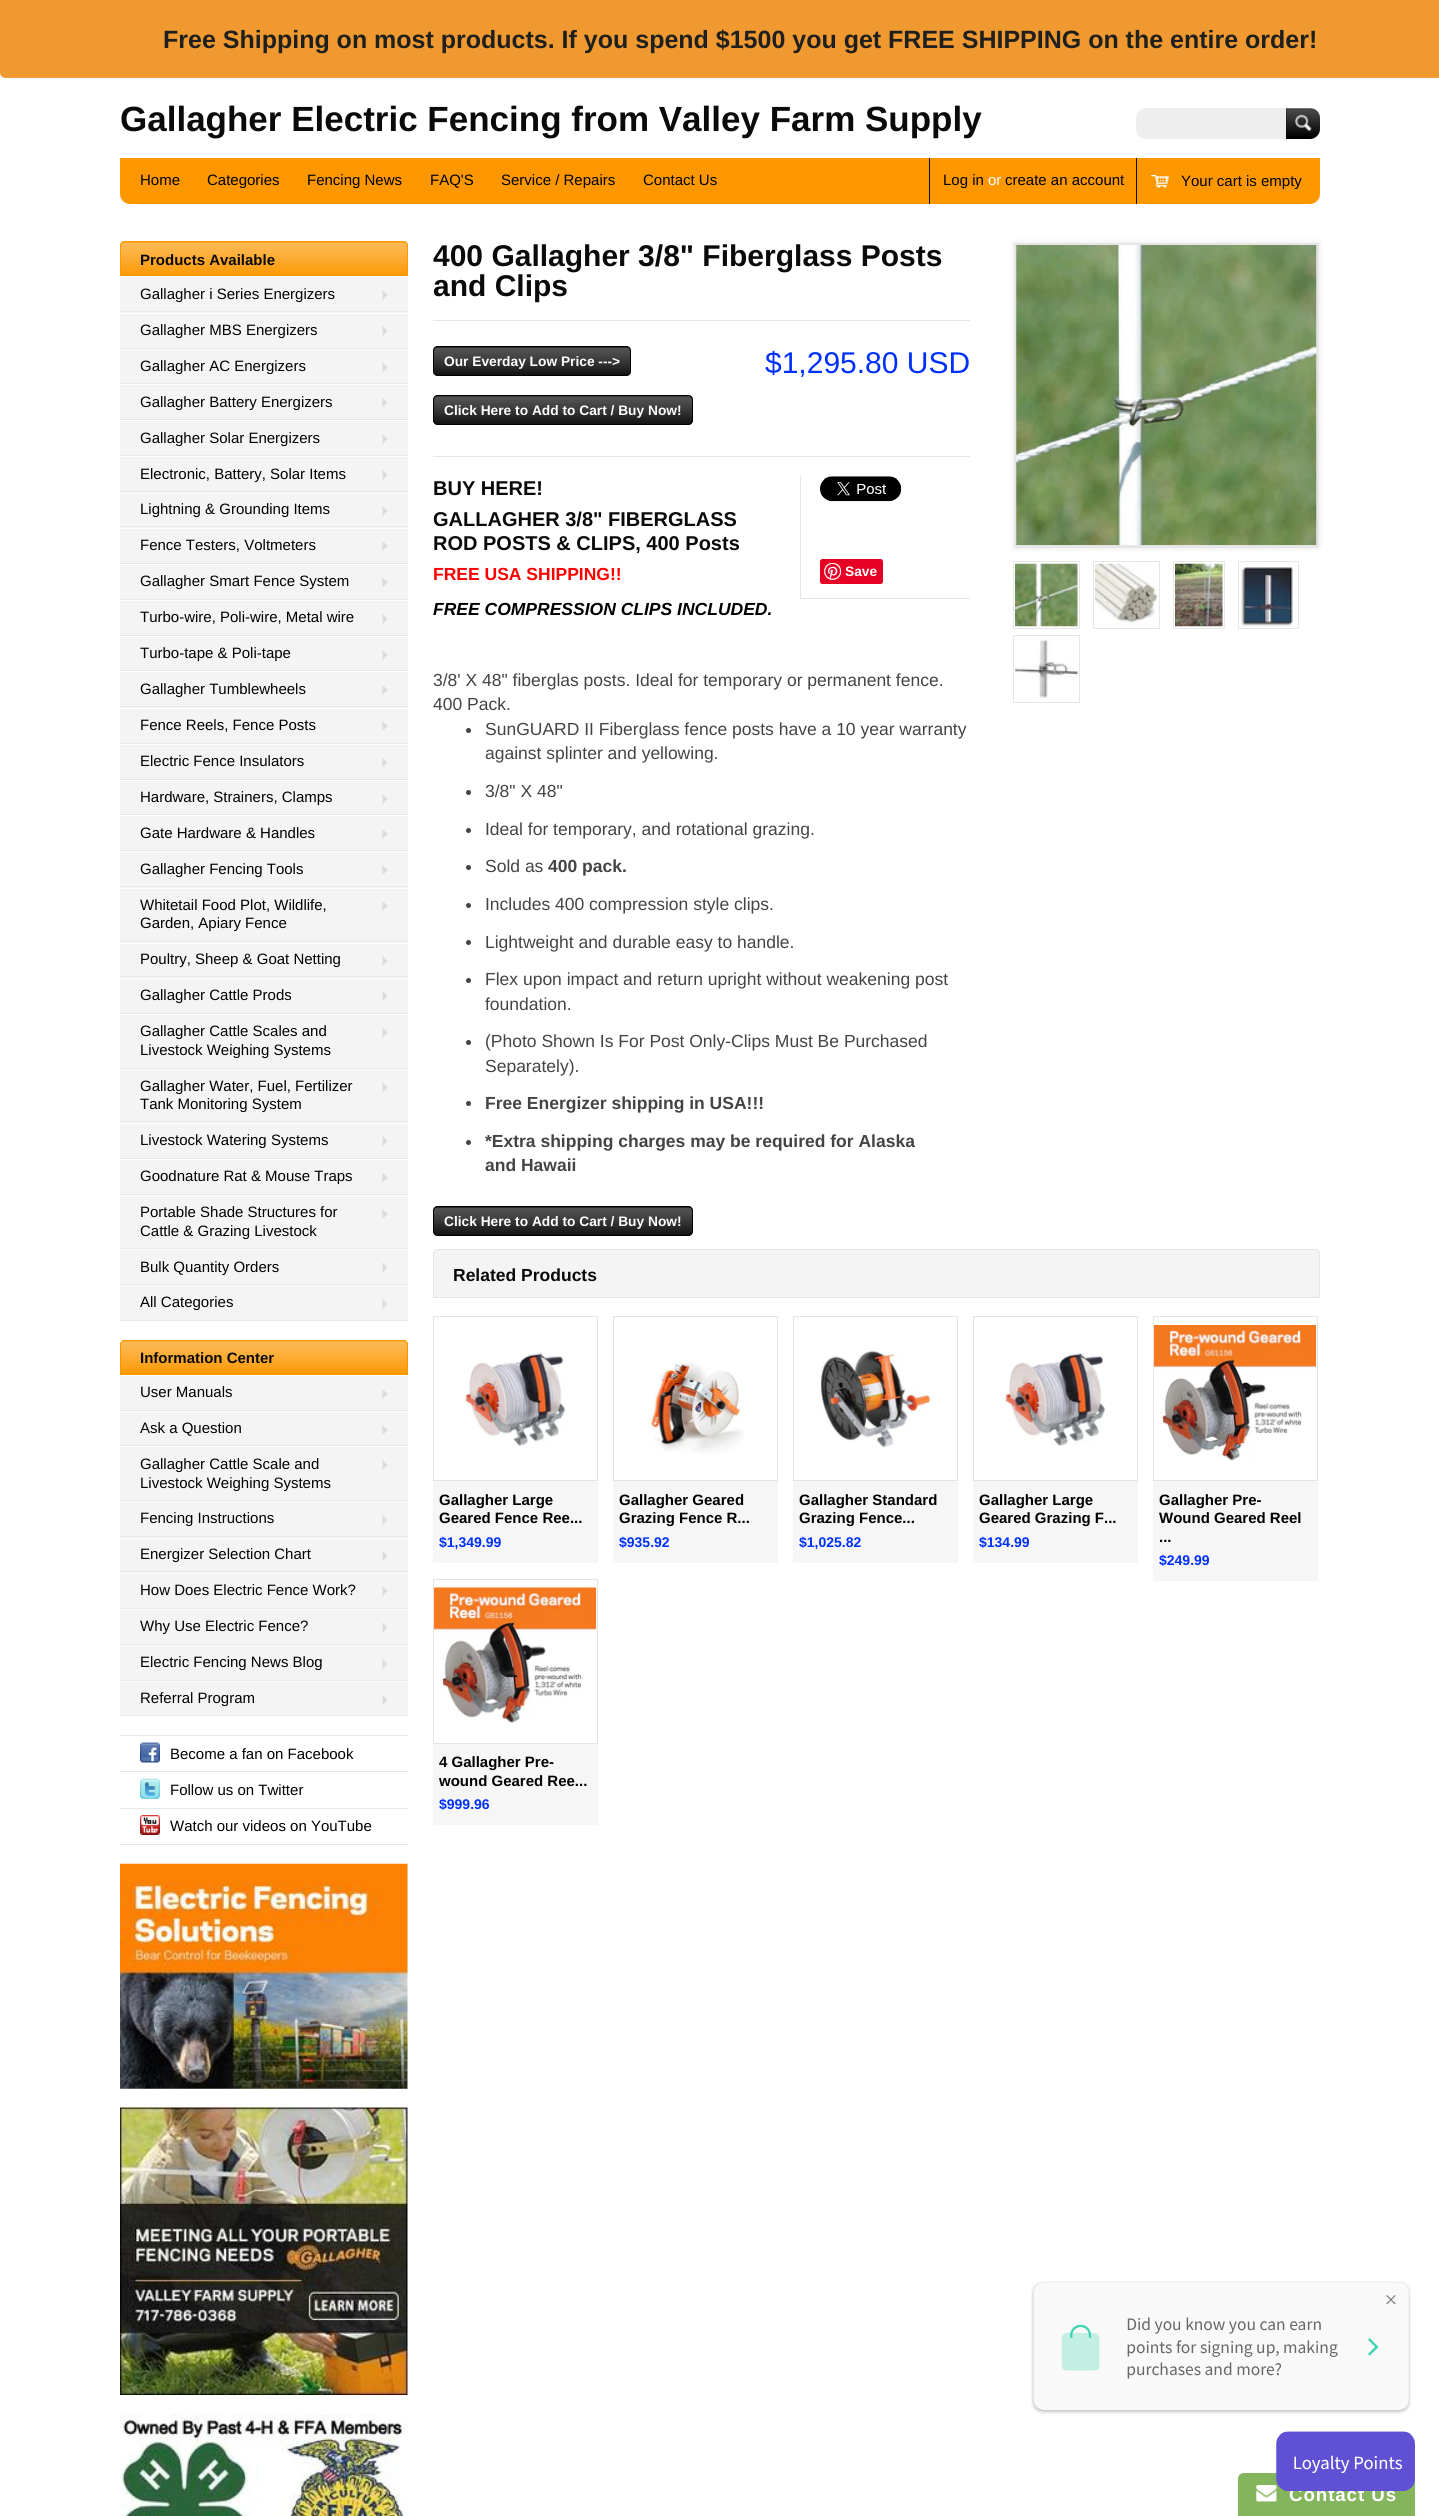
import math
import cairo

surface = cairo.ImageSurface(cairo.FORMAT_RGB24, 1439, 2516)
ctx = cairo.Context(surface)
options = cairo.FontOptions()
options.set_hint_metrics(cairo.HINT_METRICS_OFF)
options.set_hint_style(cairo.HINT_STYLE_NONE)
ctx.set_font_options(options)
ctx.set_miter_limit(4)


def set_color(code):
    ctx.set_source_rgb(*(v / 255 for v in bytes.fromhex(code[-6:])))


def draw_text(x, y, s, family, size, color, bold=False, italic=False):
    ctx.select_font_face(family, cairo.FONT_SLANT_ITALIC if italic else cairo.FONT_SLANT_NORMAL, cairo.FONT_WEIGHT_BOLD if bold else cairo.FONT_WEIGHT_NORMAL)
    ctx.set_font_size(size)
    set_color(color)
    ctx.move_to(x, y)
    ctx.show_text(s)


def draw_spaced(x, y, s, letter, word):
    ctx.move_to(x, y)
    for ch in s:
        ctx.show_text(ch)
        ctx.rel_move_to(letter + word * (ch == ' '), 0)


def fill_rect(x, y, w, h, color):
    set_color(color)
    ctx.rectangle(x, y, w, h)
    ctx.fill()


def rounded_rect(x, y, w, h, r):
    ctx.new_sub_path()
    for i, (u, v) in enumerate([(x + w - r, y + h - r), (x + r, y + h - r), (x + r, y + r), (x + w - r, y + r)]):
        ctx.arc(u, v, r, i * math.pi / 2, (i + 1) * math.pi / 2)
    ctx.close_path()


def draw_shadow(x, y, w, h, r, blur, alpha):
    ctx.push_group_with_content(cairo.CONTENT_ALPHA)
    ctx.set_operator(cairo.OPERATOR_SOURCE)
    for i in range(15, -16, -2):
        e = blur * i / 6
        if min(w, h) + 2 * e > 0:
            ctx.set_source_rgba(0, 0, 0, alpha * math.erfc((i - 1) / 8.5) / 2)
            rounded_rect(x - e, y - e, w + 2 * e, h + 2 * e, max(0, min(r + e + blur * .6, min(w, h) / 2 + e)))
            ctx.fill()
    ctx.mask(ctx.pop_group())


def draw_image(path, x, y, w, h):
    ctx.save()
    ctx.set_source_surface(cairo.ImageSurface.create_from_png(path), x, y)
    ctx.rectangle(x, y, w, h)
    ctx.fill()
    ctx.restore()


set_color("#f0f0f0")
ctx.paint()
set_color("#ef9930")
ctx.new_path()
ctx.move_to(0, 0)
ctx.line_to(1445, 0)
ctx.line_to(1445, 72)
ctx.curve_to(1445, 75.5, 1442.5, 78, 1439, 78)
ctx.line_to(6, 78)
ctx.curve_to(2.5, 78, 0, 75.5, 0, 72)
ctx.close_path()
ctx.fill()
draw_text(163, 48, "Free Shipping on most products. If you spend $1500 you get FREE SHIPPING on the entire order!", "Liberation Sans", 25, "#1f201e", bold=True)
fill_rect(0, 78, 1439, 2438, "#ffffff")
ctx.set_source_rgba(1, 1, 1, 0.06)
ctx.rectangle(3, 77, 1436, 1)
ctx.fill()
draw_text(120, 131, "Gallagher Electric Fencing from Valley Farm Supply", "Liberation Sans", 35, "#0a0a0a", bold=True)
set_color("#eeeeee")
ctx.new_path()
ctx.move_to(1146, 108)
ctx.line_to(1286, 108)
ctx.line_to(1286, 139)
ctx.line_to(1146, 139)
ctx.curve_to(1140.5, 139, 1136, 134.5, 1136, 129)
ctx.line_to(1136, 118)
ctx.curve_to(1136, 112.5, 1140.5, 108, 1146, 108)
ctx.close_path()
ctx.fill()
set_color("#000000")
ctx.new_path()
ctx.move_to(1286, 108)
ctx.line_to(1310, 108)
ctx.curve_to(1315.5, 108, 1320, 112.5, 1320, 118)
ctx.line_to(1320, 129)
ctx.curve_to(1320, 134.5, 1315.5, 139, 1310, 139)
ctx.line_to(1286, 139)
ctx.close_path()
ctx.fill()
draw_image("assets/img1.png", 1286, 108, 34, 28)
set_color("#fc9700")
ctx.new_path()
ctx.move_to(120, 158)
ctx.line_to(1320, 158)
ctx.line_to(1320, 194)
ctx.curve_to(1320, 199.5, 1315.5, 204, 1310, 204)
ctx.line_to(130, 204)
ctx.curve_to(124.5, 204, 120, 199.5, 120, 194)
ctx.close_path()
ctx.fill()
draw_text(140, 185, "Home", "Liberation Sans", 15, "#000000")
draw_text(207, 185, "Categories", "Liberation Sans", 15, "#000000")
draw_text(307, 185, "Fencing News", "Liberation Sans", 15, "#000000")
draw_text(430, 185, "FAQ'S", "Liberation Sans", 15, "#000000")
draw_text(501, 185, "Service / Repairs", "Liberation Sans", 15, "#000000")
draw_text(643, 185, "Contact Us", "Liberation Sans", 15, "#000000")
fill_rect(929, 158, 1, 46, "#0a0a0a")
draw_text(943, 185, "Log in", "Liberation Sans", 15, "#000000")
draw_text(988, 185, "or", "Liberation Sans", 15, "#ffffff")
draw_text(1005, 185, "create an account", "Liberation Sans", 15, "#000000")
fill_rect(1136, 158, 1, 46, "#0a0a0a")
draw_image("assets/img2.png", 1150, 175, 20, 13)
draw_text(1181, 186, "Your cart is empty", "Liberation Sans", 15, "#000000")
set_color("#fc9700")
ctx.new_path()
ctx.move_to(125, 241)
ctx.line_to(403, 241)
ctx.curve_to(406, 241, 408, 243, 408, 246)
ctx.line_to(408, 276)
ctx.line_to(120, 276)
ctx.line_to(120, 246)
ctx.curve_to(120, 243, 122, 241, 125, 241)
ctx.close_path()
ctx.fill()
draw_image("assets/img3.png", 120, 242, 288, 33)
ctx.new_path()
ctx.move_to(125, 241.5)
ctx.line_to(403, 241.5)
ctx.curve_to(405.5, 241.5, 407.5, 243.5, 407.5, 246)
ctx.line_to(407.5, 275.5)
ctx.line_to(120.5, 275.5)
ctx.line_to(120.5, 246)
ctx.curve_to(120.5, 243.5, 122.5, 241.5, 125, 241.5)
ctx.close_path()
ctx.set_line_width(1)
ctx.stroke()
draw_text(140, 265, "Products Available", "Liberation Sans", 15, "#0a0a0a", bold=True)
fill_rect(120, 277, 288, 36, "#f4f4f4")
fill_rect(120, 311, 288, 1, "#e8e8e8")
draw_text(140, 299, "Gallagher i Series Energizers", "Liberation Sans", 15, "#000000")
set_color("#dbdbdb")
ctx.new_path()
ctx.move_to(382.5, 300)
ctx.line_to(382.5, 290)
ctx.line_to(387.5, 295)
ctx.close_path()
ctx.fill()
fill_rect(120, 314, 288, 34, "#f4f4f4")
fill_rect(120, 348, 288, 1, "#e8e8e8")
draw_text(140, 335, "Gallagher MBS Energizers", "Liberation Sans", 15, "#000000")
set_color("#dbdbdb")
ctx.new_path()
ctx.move_to(382.5, 336)
ctx.line_to(382.5, 326)
ctx.line_to(387.5, 331)
ctx.close_path()
ctx.fill()
fill_rect(120, 350, 288, 33, "#f4f4f4")
fill_rect(120, 383, 288, 1, "#e8e8e8")
draw_text(140, 371, "Gallagher AC Energizers", "Liberation Sans", 15, "#000000")
set_color("#dbdbdb")
ctx.new_path()
ctx.move_to(382.5, 372.5)
ctx.line_to(382.5, 362.5)
ctx.line_to(387.5, 367.5)
ctx.close_path()
ctx.fill()
fill_rect(120, 385, 288, 34, "#f4f4f4")
fill_rect(120, 419, 288, 1, "#e8e8e8")
draw_text(140, 407, "Gallagher Battery Energizers", "Liberation Sans", 15, "#000000")
set_color("#dbdbdb")
ctx.new_path()
ctx.move_to(382.5, 407.5)
ctx.line_to(382.5, 397.5)
ctx.line_to(387.5, 402.5)
ctx.close_path()
ctx.fill()
fill_rect(120, 421, 288, 34, "#f4f4f4")
fill_rect(120, 455, 288, 1, "#e8e8e8")
draw_text(140, 443, "Gallagher Solar Energizers", "Liberation Sans", 15, "#000000")
set_color("#dbdbdb")
ctx.new_path()
ctx.move_to(382.5, 444)
ctx.line_to(382.5, 434)
ctx.line_to(387.5, 439)
ctx.close_path()
ctx.fill()
fill_rect(120, 457, 288, 36, "#f4f4f4")
fill_rect(120, 491, 288, 1, "#e8e8e8")
draw_text(140, 479, "Electronic, Battery, Solar Items", "Liberation Sans", 15, "#000000")
set_color("#dbdbdb")
ctx.new_path()
ctx.move_to(382.5, 480)
ctx.line_to(382.5, 470)
ctx.line_to(387.5, 475)
ctx.close_path()
ctx.fill()
fill_rect(120, 494, 288, 34, "#f4f4f4")
fill_rect(120, 526, 288, 1, "#e8e8e8")
draw_text(140, 514, "Lightning & Grounding Items", "Liberation Sans", 15, "#000000")
set_color("#dbdbdb")
ctx.new_path()
ctx.move_to(382.5, 516)
ctx.line_to(382.5, 506)
ctx.line_to(387.5, 511)
ctx.close_path()
ctx.fill()
fill_rect(120, 529, 288, 34, "#f4f4f4")
fill_rect(120, 563, 288, 1, "#e8e8e8")
draw_text(140, 550, "Fence Testers, Voltmeters", "Liberation Sans", 15, "#000000")
set_color("#dbdbdb")
ctx.new_path()
ctx.move_to(382.5, 551)
ctx.line_to(382.5, 541)
ctx.line_to(387.5, 546)
ctx.close_path()
ctx.fill()
fill_rect(120, 565, 288, 34, "#f4f4f4")
fill_rect(120, 599, 288, 1, "#e8e8e8")
draw_text(140, 586, "Gallagher Smart Fence System", "Liberation Sans", 15, "#000000")
set_color("#dbdbdb")
ctx.new_path()
ctx.move_to(382.5, 587.5)
ctx.line_to(382.5, 577.5)
ctx.line_to(387.5, 582.5)
ctx.close_path()
ctx.fill()
fill_rect(120, 601, 288, 34, "#f4f4f4")
fill_rect(120, 635, 288, 1, "#e8e8e8")
draw_text(140, 622, "Turbo-wire, Poli-wire, Metal wire", "Liberation Sans", 15, "#000000")
set_color("#dbdbdb")
ctx.new_path()
ctx.move_to(382.5, 624)
ctx.line_to(382.5, 614)
ctx.line_to(387.5, 619)
ctx.close_path()
ctx.fill()
fill_rect(120, 637, 288, 33, "#f4f4f4")
fill_rect(120, 670, 288, 1, "#e8e8e8")
draw_text(140, 658, "Turbo-tape & Poli-tape", "Liberation Sans", 15, "#000000")
set_color("#dbdbdb")
ctx.new_path()
ctx.move_to(382.5, 660)
ctx.line_to(382.5, 650)
ctx.line_to(387.5, 655)
ctx.close_path()
ctx.fill()
fill_rect(120, 672, 288, 36, "#f4f4f4")
fill_rect(120, 706, 288, 1, "#e8e8e8")
draw_text(140, 694, "Gallagher Tumblewheels", "Liberation Sans", 15, "#000000")
set_color("#dbdbdb")
ctx.new_path()
ctx.move_to(382.5, 695)
ctx.line_to(382.5, 685)
ctx.line_to(387.5, 690)
ctx.close_path()
ctx.fill()
fill_rect(120, 709, 288, 34, "#f4f4f4")
fill_rect(120, 743, 288, 1, "#e8e8e8")
draw_text(140, 730, "Fence Reels, Fence Posts", "Liberation Sans", 15, "#000000")
set_color("#dbdbdb")
ctx.new_path()
ctx.move_to(382.5, 731)
ctx.line_to(382.5, 721)
ctx.line_to(387.5, 726)
ctx.close_path()
ctx.fill()
fill_rect(120, 745, 288, 34, "#f4f4f4")
fill_rect(120, 779, 288, 1, "#e8e8e8")
draw_text(140, 766, "Electric Fence Insulators", "Liberation Sans", 15, "#000000")
set_color("#dbdbdb")
ctx.new_path()
ctx.move_to(382.5, 767.5)
ctx.line_to(382.5, 757.5)
ctx.line_to(387.5, 762.5)
ctx.close_path()
ctx.fill()
fill_rect(120, 781, 288, 33, "#f4f4f4")
fill_rect(120, 814, 288, 1, "#e8e8e8")
draw_text(140, 802, "Hardware, Strainers, Clamps", "Liberation Sans", 15, "#000000")
set_color("#dbdbdb")
ctx.new_path()
ctx.move_to(382.5, 804)
ctx.line_to(382.5, 794)
ctx.line_to(387.5, 799)
ctx.close_path()
ctx.fill()
fill_rect(120, 816, 288, 34, "#f4f4f4")
fill_rect(120, 850, 288, 1, "#e8e8e8")
draw_text(140, 838, "Gate Hardware & Handles", "Liberation Sans", 15, "#000000")
set_color("#dbdbdb")
ctx.new_path()
ctx.move_to(382.5, 839)
ctx.line_to(382.5, 829)
ctx.line_to(387.5, 834)
ctx.close_path()
ctx.fill()
fill_rect(120, 852, 288, 36, "#f4f4f4")
fill_rect(120, 886, 288, 1, "#e8e8e8")
draw_text(140, 874, "Gallagher Fencing Tools", "Liberation Sans", 15, "#000000")
set_color("#dbdbdb")
ctx.new_path()
ctx.move_to(382.5, 875)
ctx.line_to(382.5, 865)
ctx.line_to(387.5, 870)
ctx.close_path()
ctx.fill()
fill_rect(120, 889, 288, 54, "#f4f4f4")
fill_rect(120, 941, 288, 1, "#e8e8e8")
draw_text(140, 910, "Whitetail Food Plot, Wildlife,", "Liberation Sans", 15, "#000000")
set_color("#dbdbdb")
ctx.new_path()
ctx.move_to(382.5, 911)
ctx.line_to(382.5, 901)
ctx.line_to(387.5, 906)
ctx.close_path()
ctx.fill()
draw_text(140, 928, "Garden, Apiary Fence", "Liberation Sans", 15, "#000000")
fill_rect(120, 944, 288, 34, "#f4f4f4")
fill_rect(120, 976, 288, 1, "#e8e8e8")
draw_text(140, 964, "Poultry, Sheep & Goat Netting", "Liberation Sans", 15, "#000000")
set_color("#dbdbdb")
ctx.new_path()
ctx.move_to(382.5, 966)
ctx.line_to(382.5, 956)
ctx.line_to(387.5, 961)
ctx.close_path()
ctx.fill()
fill_rect(120, 979, 288, 34, "#f4f4f4")
fill_rect(120, 1013, 288, 1, "#e8e8e8")
draw_text(140, 1000, "Gallagher Cattle Prods", "Liberation Sans", 15, "#000000")
set_color("#dbdbdb")
ctx.new_path()
ctx.move_to(382.5, 1001)
ctx.line_to(382.5, 991)
ctx.line_to(387.5, 996)
ctx.close_path()
ctx.fill()
fill_rect(120, 1015, 288, 53, "#f4f4f4")
fill_rect(120, 1068, 288, 1, "#e8e8e8")
draw_text(140, 1036, "Gallagher Cattle Scales and", "Liberation Sans", 15, "#000000")
set_color("#dbdbdb")
ctx.new_path()
ctx.move_to(382.5, 1037.5)
ctx.line_to(382.5, 1027.5)
ctx.line_to(387.5, 1032.5)
ctx.close_path()
ctx.fill()
draw_text(140, 1055, "Livestock Weighing Systems", "Liberation Sans", 15, "#000000")
fill_rect(120, 1070, 288, 53, "#f4f4f4")
fill_rect(120, 1121, 288, 1, "#e8e8e8")
draw_text(140, 1091, "Gallagher Water, Fuel, Fertilizer", "Liberation Sans", 15, "#000000")
set_color("#dbdbdb")
ctx.new_path()
ctx.move_to(382.5, 1092.5)
ctx.line_to(382.5, 1082.5)
ctx.line_to(387.5, 1087.5)
ctx.close_path()
ctx.fill()
draw_text(140, 1109, "Tank Monitoring System", "Liberation Sans", 15, "#000000")
fill_rect(120, 1124, 288, 34, "#f4f4f4")
fill_rect(120, 1158, 288, 1, "#e8e8e8")
draw_text(140, 1145, "Livestock Watering Systems", "Liberation Sans", 15, "#000000")
set_color("#dbdbdb")
ctx.new_path()
ctx.move_to(382.5, 1146)
ctx.line_to(382.5, 1136)
ctx.line_to(387.5, 1141)
ctx.close_path()
ctx.fill()
fill_rect(120, 1160, 288, 34, "#f4f4f4")
fill_rect(120, 1194, 288, 1, "#e8e8e8")
draw_text(140, 1181, "Goodnature Rat & Mouse Traps", "Liberation Sans", 15, "#000000")
set_color("#dbdbdb")
ctx.new_path()
ctx.move_to(382.5, 1182.5)
ctx.line_to(382.5, 1172.5)
ctx.line_to(387.5, 1177.5)
ctx.close_path()
ctx.fill()
fill_rect(120, 1196, 288, 52, "#f4f4f4")
fill_rect(120, 1248, 288, 1, "#e8e8e8")
draw_text(140, 1217, "Portable Shade Structures for", "Liberation Sans", 15, "#000000")
set_color("#dbdbdb")
ctx.new_path()
ctx.move_to(382.5, 1219)
ctx.line_to(382.5, 1209)
ctx.line_to(387.5, 1214)
ctx.close_path()
ctx.fill()
draw_text(140, 1236, "Cattle & Grazing Livestock", "Liberation Sans", 15, "#000000")
fill_rect(120, 1250, 288, 34, "#f4f4f4")
fill_rect(120, 1284, 288, 1, "#e8e8e8")
draw_text(140, 1272, "Bulk Quantity Orders", "Liberation Sans", 15, "#000000")
set_color("#dbdbdb")
ctx.new_path()
ctx.move_to(382.5, 1272.5)
ctx.line_to(382.5, 1262.5)
ctx.line_to(387.5, 1267.5)
ctx.close_path()
ctx.fill()
fill_rect(120, 1286, 288, 34, "#f4f4f4")
fill_rect(120, 1320, 288, 1, "#e8e8e8")
draw_text(140, 1307, "All Categories", "Liberation Sans", 15, "#000000")
set_color("#dbdbdb")
ctx.new_path()
ctx.move_to(382.5, 1309)
ctx.line_to(382.5, 1299)
ctx.line_to(387.5, 1304)
ctx.close_path()
ctx.fill()
set_color("#fc9700")
ctx.new_path()
ctx.move_to(125, 1340)
ctx.line_to(403, 1340)
ctx.curve_to(406, 1340, 408, 1342, 408, 1345)
ctx.line_to(408, 1375)
ctx.line_to(120, 1375)
ctx.line_to(120, 1345)
ctx.curve_to(120, 1342, 122, 1340, 125, 1340)
ctx.close_path()
ctx.fill()
draw_image("assets/img4.png", 120, 1341, 288, 33)
ctx.new_path()
ctx.move_to(125, 1340.5)
ctx.line_to(403, 1340.5)
ctx.curve_to(405.5, 1340.5, 407.5, 1342.5, 407.5, 1345)
ctx.line_to(407.5, 1374.5)
ctx.line_to(120.5, 1374.5)
ctx.line_to(120.5, 1345)
ctx.curve_to(120.5, 1342.5, 122.5, 1340.5, 125, 1340.5)
ctx.close_path()
ctx.stroke()
draw_text(140, 1363, "Information Center", "Liberation Sans", 15, "#0a0a0a", bold=True)
fill_rect(120, 1376, 288, 34, "#f4f4f4")
fill_rect(120, 1410, 288, 1, "#e8e8e8")
draw_text(140, 1397, "User Manuals", "Liberation Sans", 15, "#000000")
set_color("#dbdbdb")
ctx.new_path()
ctx.move_to(382.5, 1399)
ctx.line_to(382.5, 1389)
ctx.line_to(387.5, 1394)
ctx.close_path()
ctx.fill()
fill_rect(120, 1412, 288, 33, "#f4f4f4")
fill_rect(120, 1445, 288, 1, "#e8e8e8")
draw_text(140, 1433, "Ask a Question", "Liberation Sans", 15, "#000000")
set_color("#dbdbdb")
ctx.new_path()
ctx.move_to(382.5, 1435)
ctx.line_to(382.5, 1425)
ctx.line_to(387.5, 1430)
ctx.close_path()
ctx.fill()
fill_rect(120, 1447, 288, 53, "#f4f4f4")
fill_rect(120, 1500, 288, 1, "#e8e8e8")
draw_text(140, 1469, "Gallagher Cattle Scale and", "Liberation Sans", 15, "#000000")
set_color("#dbdbdb")
ctx.new_path()
ctx.move_to(382.5, 1470)
ctx.line_to(382.5, 1460)
ctx.line_to(387.5, 1465)
ctx.close_path()
ctx.fill()
draw_text(140, 1488, "Livestock Weighing Systems", "Liberation Sans", 15, "#000000")
fill_rect(120, 1502, 288, 36, "#f4f4f4")
fill_rect(120, 1536, 288, 1, "#e8e8e8")
draw_text(140, 1523, "Fencing Instructions", "Liberation Sans", 15, "#000000")
set_color("#dbdbdb")
ctx.new_path()
ctx.move_to(382.5, 1525)
ctx.line_to(382.5, 1515)
ctx.line_to(387.5, 1520)
ctx.close_path()
ctx.fill()
fill_rect(120, 1539, 288, 34, "#f4f4f4")
fill_rect(120, 1571, 288, 1, "#e8e8e8")
draw_text(140, 1559, "Energizer Selection Chart", "Liberation Sans", 15, "#000000")
set_color("#dbdbdb")
ctx.new_path()
ctx.move_to(382.5, 1561)
ctx.line_to(382.5, 1551)
ctx.line_to(387.5, 1556)
ctx.close_path()
ctx.fill()
fill_rect(120, 1574, 288, 34, "#f4f4f4")
fill_rect(120, 1608, 288, 1, "#e8e8e8")
draw_text(140, 1595, "How Does Electric Fence Work?", "Liberation Sans", 15, "#000000")
set_color("#dbdbdb")
ctx.new_path()
ctx.move_to(382.5, 1596)
ctx.line_to(382.5, 1586)
ctx.line_to(387.5, 1591)
ctx.close_path()
ctx.fill()
fill_rect(120, 1610, 288, 34, "#f4f4f4")
fill_rect(120, 1644, 288, 1, "#e8e8e8")
draw_text(140, 1631, "Why Use Electric Fence?", "Liberation Sans", 15, "#000000")
set_color("#dbdbdb")
ctx.new_path()
ctx.move_to(382.5, 1632.5)
ctx.line_to(382.5, 1622.5)
ctx.line_to(387.5, 1627.5)
ctx.close_path()
ctx.fill()
fill_rect(120, 1646, 288, 34, "#f4f4f4")
fill_rect(120, 1680, 288, 1, "#e8e8e8")
draw_text(140, 1667, "Electric Fencing News Blog", "Liberation Sans", 15, "#000000")
set_color("#dbdbdb")
ctx.new_path()
ctx.move_to(382.5, 1669)
ctx.line_to(382.5, 1659)
ctx.line_to(387.5, 1664)
ctx.close_path()
ctx.fill()
fill_rect(120, 1682, 288, 33, "#f4f4f4")
fill_rect(120, 1715, 288, 1, "#e8e8e8")
draw_text(140, 1703, "Referral Program", "Liberation Sans", 15, "#000000")
set_color("#dbdbdb")
ctx.new_path()
ctx.move_to(382.5, 1705)
ctx.line_to(382.5, 1695)
ctx.line_to(387.5, 1700)
ctx.close_path()
ctx.fill()
fill_rect(120, 1735, 288, 1, "#e8e8e8")
draw_image("assets/img5.png", 140, 1742, 20, 21)
fill_rect(120, 1771, 288, 1, "#e8e8e8")
draw_text(170, 1759, "Become a fan on Facebook", "Liberation Sans", 15, "#000000")
draw_image("assets/img6.png", 140, 1778, 20, 21)
fill_rect(120, 1808, 288, 1, "#e8e8e8")
draw_text(170, 1795, "Follow us on Twitter", "Liberation Sans", 15, "#000000")
draw_image("assets/img7.png", 140, 1815, 20, 20)
fill_rect(120, 1844, 288, 1, "#e8e8e8")
draw_text(170, 1831, "Watch our videos on YouTube", "Liberation Sans", 15, "#000000")
draw_image("assets/img8.png", 120, 1863, 288, 226)
draw_image("assets/img9.png", 120, 2107, 288, 288)
draw_image("assets/img10.png", 120, 2414, 288, 102)
fill_rect(433, 320, 537, 1, "#e6e6e6")
draw_text(433, 266, "400 Gallagher 3/8\" Fiberglass Posts", "Liberation Sans", 30, "#0a0a0a", bold=True)
draw_text(433, 296, "and Clips", "Liberation Sans", 30, "#0a0a0a", bold=True)
fill_rect(433, 456, 537, 1, "#e6e6e6")
set_color("#000000")
rounded_rect(433, 346, 198, 30, 5)
ctx.fill()
draw_image("assets/img11.png", 433, 347, 198, 29)
rounded_rect(433.5, 346.5, 197, 29, 4.5)
ctx.stroke()
draw_text(444, 366, "Our Everday Low Price --->", "Liberation Sans", 13.75, "#ffffff", bold=True)
draw_text(765, 373, "$1,295.80 USD", "Liberation Sans", 30, "#0031fc")
set_color("#000000")
rounded_rect(433, 395, 260, 30, 5)
ctx.fill()
draw_image("assets/img12.png", 433, 396, 260, 29)
rounded_rect(433.5, 395.5, 259, 29, 4.5)
ctx.stroke()
draw_text(444, 415, "Click Here to Add to Cart / Buy Now!", "Liberation Sans", 13.75, "#ffffff", bold=True)
draw_text(433, 495, "BUY HERE!", "Liberation Sans", 20, "#0a0a0a", bold=True)
draw_text(433, 526, "GALLAGHER 3/8\" FIBERGLASS", "Liberation Sans", 20, "#0a0a0a", bold=True)
draw_text(433, 550, "ROD POSTS & CLIPS, 400 Posts", "Liberation Sans", 20, "#0a0a0a", bold=True)
draw_text(433, 580, "FREE USA SHIPPING!!", "Liberation Sans", 17.5, "#ff0000", bold=True)
fill_rect(800, 598, 170, 1, "#e6e6e6")
fill_rect(800, 476, 1, 123, "#e6e6e6")
draw_image("assets/img13.png", 820, 476, 82, 26)
set_color("#e60023")
rounded_rect(820, 559, 63, 25, 2.5)
ctx.fill()
draw_image("assets/img14.png", 824, 563, 17, 17)
draw_text(845, 576, "Save", "Liberation Sans", 13.75, "#ffffff", bold=True)
draw_text(433, 615, "FREE COMPRESSION CLIPS INCLUDED.", "Liberation Sans", 17.5, "#000000", bold=True, italic=True)
draw_text(433, 686, "3/8' X 48\" fiberglas posts. Ideal for temporary or permanent fence.", "Liberation Sans", 17.5, "#444444")
draw_text(433, 710, "400 Pack.", "Liberation Sans", 17.5, "#444444")
ctx.new_path()
ctx.arc(468.5, 730.5, 2.5, 0, 2 * math.pi)
ctx.fill()
draw_text(485, 735, "SunGUARD II Fiberglass fence posts have a 10 year warranty", "Liberation Sans", 17.5, "#444444")
draw_text(485, 759, "against splinter and yellowing.", "Liberation Sans", 17.5, "#444444")
ctx.new_path()
ctx.arc(468.5, 792.5, 2.5, 0, 2 * math.pi)
ctx.fill()
draw_text(485, 797, "3/8\" X 48\"", "Liberation Sans", 17.5, "#444444")
ctx.new_path()
ctx.arc(468.5, 830.5, 2.5, 0, 2 * math.pi)
ctx.fill()
draw_text(485, 835, "Ideal for temporary, and rotational grazing.", "Liberation Sans", 17.5, "#444444")
ctx.new_path()
ctx.arc(468.5, 867.5, 2.5, 0, 2 * math.pi)
ctx.fill()
draw_text(485, 872, "Sold as", "Liberation Sans", 17.5, "#444444")
draw_text(548, 872, "400 pack.", "Liberation Sans", 17.5, "#444444", bold=True)
ctx.new_path()
ctx.arc(468.5, 905.5, 2.5, 0, 2 * math.pi)
ctx.fill()
draw_text(485, 910, "Includes 400 compression style clips.", "Liberation Sans", 17.5, "#444444")
ctx.new_path()
ctx.arc(468.5, 942.5, 2.5, 0, 2 * math.pi)
ctx.fill()
draw_text(485, 948, "Lightweight and durable easy to handle.", "Liberation Sans", 17.5, "#444444")
ctx.new_path()
ctx.arc(468.5, 980.5, 2.5, 0, 2 * math.pi)
ctx.fill()
draw_text(485, 985, "Flex upon impact and return upright without weakening post", "Liberation Sans", 17.5, "#444444")
draw_text(485, 1010, "foundation.", "Liberation Sans", 17.5, "#444444")
ctx.new_path()
ctx.arc(468.5, 1042.5, 2.5, 0, 2 * math.pi)
ctx.fill()
draw_text(485, 1047, "(Photo Shown Is For Post Only-Clips Must Be Purchased", "Liberation Sans", 17.5, "#444444")
draw_text(485, 1072, "Separately).", "Liberation Sans", 17.5, "#444444")
ctx.new_path()
ctx.arc(468.5, 1103.5, 2.5, 0, 2 * math.pi)
ctx.fill()
draw_text(485, 1109, "Free Energizer shipping in USA!!!", "Liberation Sans", 17.5, "#444444", bold=True)
ctx.new_path()
ctx.arc(468.5, 1142.5, 2.5, 0, 2 * math.pi)
ctx.fill()
draw_text(485, 1147, "*Extra shipping charges may be required for Alaska", "Liberation Sans", 17.5, "#444444", bold=True)
draw_text(485, 1171, "and Hawaii", "Liberation Sans", 17.5, "#444444", bold=True)
set_color("#000000")
rounded_rect(433, 1206, 260, 30, 5)
ctx.fill()
draw_image("assets/img15.png", 433, 1207, 260, 29)
rounded_rect(433.5, 1206.5, 259, 29, 4.5)
ctx.stroke()
draw_text(444, 1226, "Click Here to Add to Cart / Buy Now!", "Liberation Sans", 13.75, "#ffffff", bold=True)
set_color("#000000")
draw_shadow(1014, 243, 305, 305, 0, 3, 0.1)
ctx.rectangle(1015.5, 244.5, 302, 302)
set_color("#e6e6e6")
ctx.set_line_width(3)
ctx.stroke()
draw_image("assets/img16.png", 1016, 245, 301, 300)
ctx.rectangle(1013.5, 561.5, 66, 67)
ctx.set_line_width(1)
ctx.stroke()
draw_image("assets/img17.png", 1015, 563, 63, 64)
ctx.rectangle(1093.5, 561.5, 66, 67)
ctx.stroke()
draw_image("assets/img18.png", 1095, 563, 63, 61)
ctx.rectangle(1173.5, 561.5, 51, 67)
ctx.stroke()
draw_image("assets/img19.png", 1175, 563, 48, 64)
ctx.rectangle(1238.5, 561.5, 60, 67)
ctx.stroke()
draw_image("assets/img20.png", 1240, 564, 56, 63)
ctx.rectangle(1013.5, 635.5, 66, 67)
ctx.stroke()
draw_image("assets/img21.png", 1015, 640, 63, 58)
set_color("#f4f4f4")
ctx.new_path()
ctx.move_to(438, 1249.5)
ctx.line_to(1315, 1249.5)
ctx.curve_to(1317.5, 1249.5, 1319.5, 1251.5, 1319.5, 1254)
ctx.line_to(1319.5, 1297.5)
ctx.line_to(433.5, 1297.5)
ctx.line_to(433.5, 1254)
ctx.curve_to(433.5, 1251.5, 435.5, 1249.5, 438, 1249.5)
ctx.close_path()
ctx.fill_preserve()
set_color("#e4e4e4")
ctx.stroke()
draw_text(453, 1281, "Related Products", "Liberation Sans", 17.5, "#0a0a0a", bold=True)
ctx.rectangle(433.5, 1316.5, 164, 164)
set_color("#e4e4e4")
ctx.stroke()
draw_image("assets/img22.png", 464, 1353, 102, 93)
fill_rect(433, 1481, 165, 82, "#f6f6f6")
draw_text(439, 1505, "Gallagher Large", "Liberation Sans", 15, "#000000", bold=True)
draw_text(439, 1523, "Geared Fence Ree...", "Liberation Sans", 15, "#000000", bold=True)
draw_text(439, 1547, "$1,349.99", "Liberation Sans", 14, "#0031fc", bold=True)
ctx.rectangle(613.5, 1316.5, 164, 164)
set_color("#e4e4e4")
ctx.stroke()
draw_image("assets/img23.png", 650, 1362, 94, 92)
fill_rect(613, 1481, 165, 82, "#f6f6f6")
draw_text(619, 1505, "Gallagher Geared", "Liberation Sans", 15, "#000000", bold=True)
draw_text(619, 1523, "Grazing Fence R...", "Liberation Sans", 15, "#000000", bold=True)
draw_text(619, 1547, "$935.92", "Liberation Sans", 14, "#0031fc", bold=True)
ctx.rectangle(793.5, 1316.5, 164, 164)
set_color("#e4e4e4")
ctx.stroke()
draw_image("assets/img24.png", 819, 1350, 113, 98)
fill_rect(793, 1481, 165, 82, "#f6f6f6")
draw_text(799, 1505, "Gallagher Standard", "Liberation Sans", 15, "#000000", bold=True)
draw_text(799, 1523, "Grazing Fence...", "Liberation Sans", 15, "#000000", bold=True)
draw_text(799, 1547, "$1,025.82", "Liberation Sans", 14, "#0031fc", bold=True)
ctx.rectangle(973.5, 1316.5, 164, 164)
set_color("#e4e4e4")
ctx.stroke()
draw_image("assets/img25.png", 1004, 1353, 102, 93)
fill_rect(973, 1481, 165, 82, "#f6f6f6")
draw_text(979, 1505, "Gallagher Large", "Liberation Sans", 15, "#000000", bold=True)
draw_text(979, 1523, "Geared Grazing F...", "Liberation Sans", 15, "#000000", bold=True)
draw_text(979, 1547, "$134.99", "Liberation Sans", 14, "#0031fc", bold=True)
ctx.rectangle(1153.5, 1316.5, 164, 164)
set_color("#e4e4e4")
ctx.stroke()
draw_image("assets/img26.png", 1153, 1325, 164, 136)
fill_rect(1153, 1481, 165, 100, "#f6f6f6")
draw_text(1159, 1505, "Gallagher Pre-", "Liberation Sans", 15, "#000000", bold=True)
draw_text(1159, 1523, "Wound Geared Reel", "Liberation Sans", 15, "#000000", bold=True)
draw_text(1159, 1542, "...", "Liberation Sans", 15, "#000000", bold=True)
draw_text(1159, 1565, "$249.99", "Liberation Sans", 14, "#0031fc", bold=True)
ctx.rectangle(433.5, 1579.5, 164, 164)
set_color("#e4e4e4")
ctx.stroke()
draw_image("assets/img27.png", 433, 1587, 164, 136)
fill_rect(433, 1744, 165, 81, "#f6f6f6")
draw_text(439, 1767, "4 Gallagher Pre-", "Liberation Sans", 15, "#000000", bold=True)
draw_text(439, 1786, "wound Geared Ree...", "Liberation Sans", 15, "#000000", bold=True)
draw_text(439, 1809, "$999.96", "Liberation Sans", 14, "#0031fc", bold=True)
draw_image("assets/img28.png", 1031, 2281, 380, 133)
set_color("#84b45b")
ctx.new_path()
ctx.move_to(1244, 2473)
ctx.line_to(1409, 2473)
ctx.curve_to(1412.5, 2473, 1415, 2475.5, 1415, 2479)
ctx.line_to(1415, 2516)
ctx.line_to(1238, 2516)
ctx.line_to(1238, 2479)
ctx.curve_to(1238, 2475.5, 1240.5, 2473, 1244, 2473)
ctx.close_path()
ctx.fill()
draw_image("assets/img30.png", 1256, 2485, 21, 17)
ctx.set_font_size(18.75)
set_color("#ffffff")
draw_spaced(1289, 2501, "Contact Us", 0.9, 0)
draw_image("assets/img29.png", 1276, 2431, 139, 60)
surface.write_to_png("output.png")
